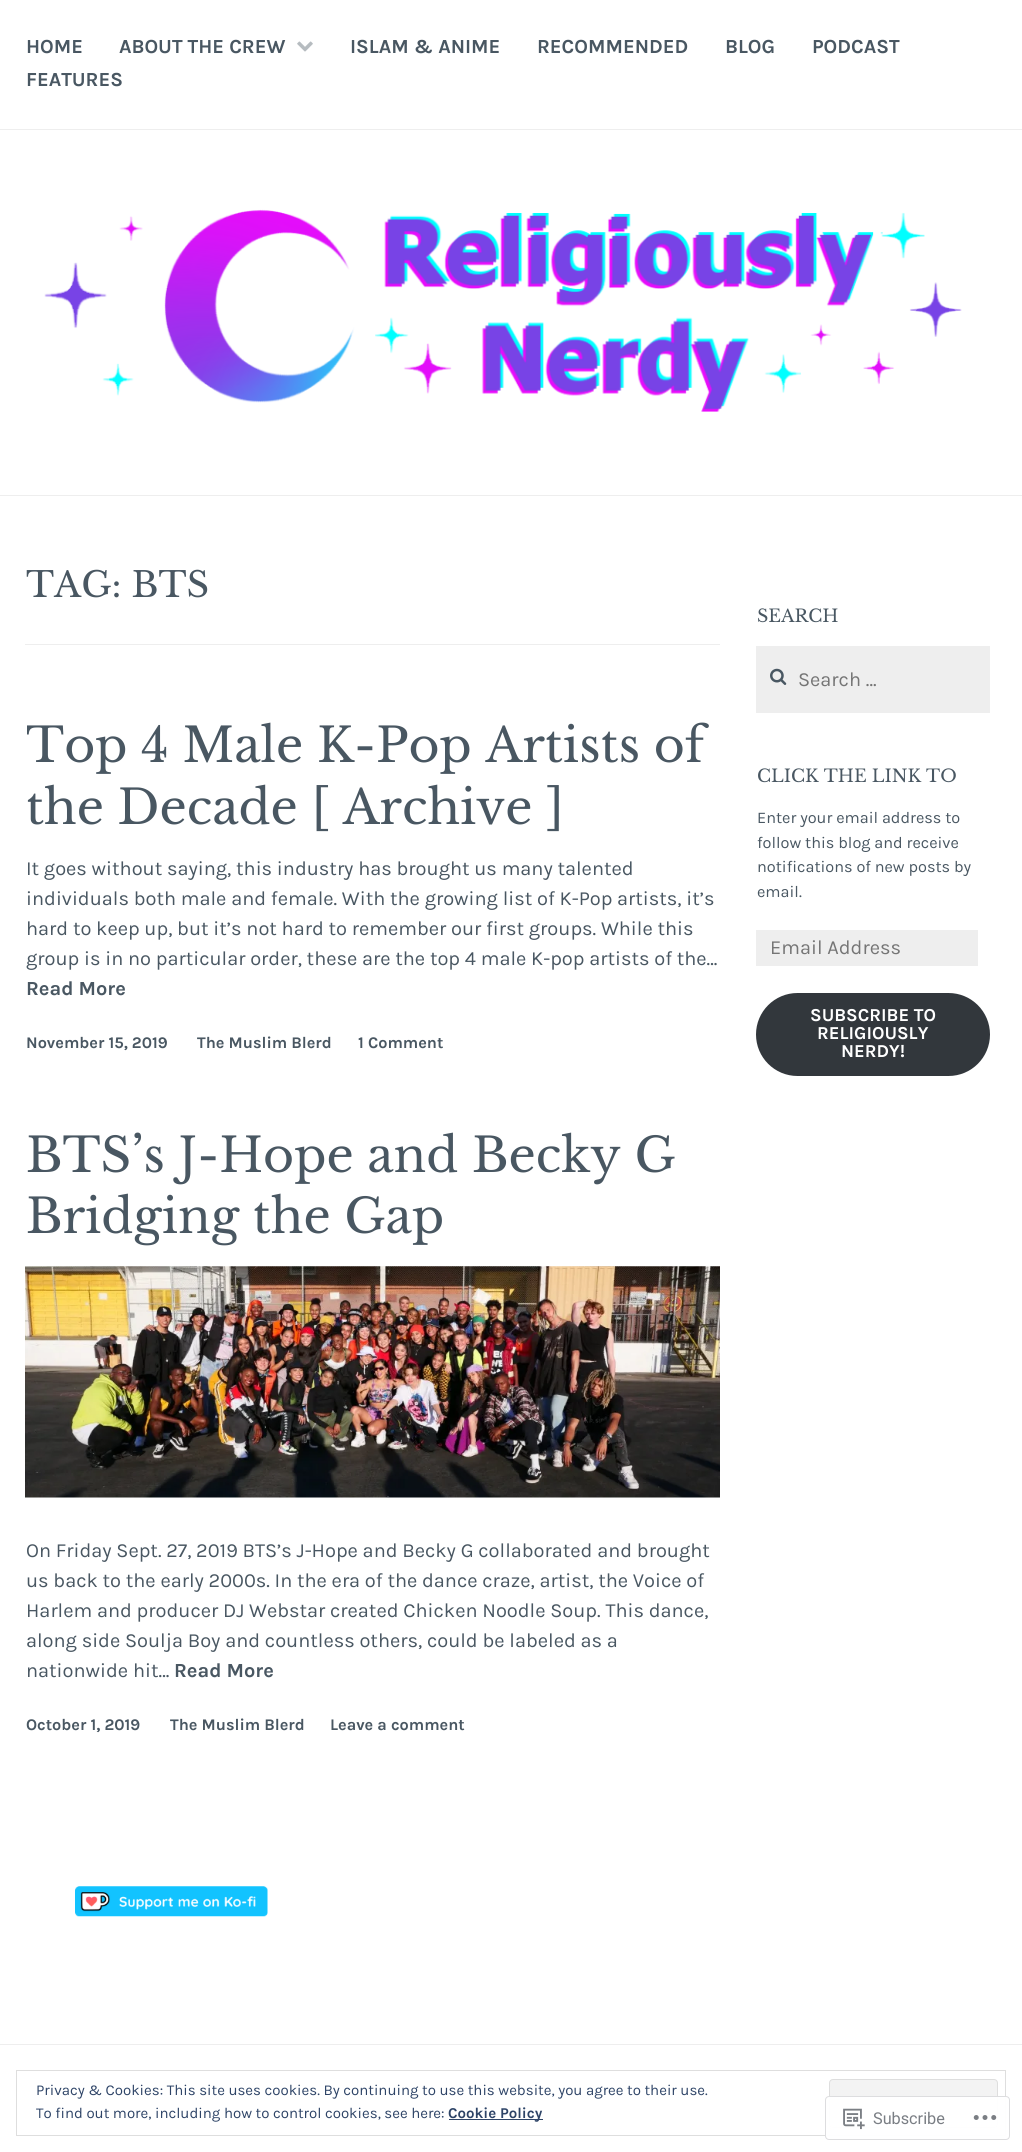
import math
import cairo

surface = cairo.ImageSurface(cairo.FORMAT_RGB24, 1022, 2152)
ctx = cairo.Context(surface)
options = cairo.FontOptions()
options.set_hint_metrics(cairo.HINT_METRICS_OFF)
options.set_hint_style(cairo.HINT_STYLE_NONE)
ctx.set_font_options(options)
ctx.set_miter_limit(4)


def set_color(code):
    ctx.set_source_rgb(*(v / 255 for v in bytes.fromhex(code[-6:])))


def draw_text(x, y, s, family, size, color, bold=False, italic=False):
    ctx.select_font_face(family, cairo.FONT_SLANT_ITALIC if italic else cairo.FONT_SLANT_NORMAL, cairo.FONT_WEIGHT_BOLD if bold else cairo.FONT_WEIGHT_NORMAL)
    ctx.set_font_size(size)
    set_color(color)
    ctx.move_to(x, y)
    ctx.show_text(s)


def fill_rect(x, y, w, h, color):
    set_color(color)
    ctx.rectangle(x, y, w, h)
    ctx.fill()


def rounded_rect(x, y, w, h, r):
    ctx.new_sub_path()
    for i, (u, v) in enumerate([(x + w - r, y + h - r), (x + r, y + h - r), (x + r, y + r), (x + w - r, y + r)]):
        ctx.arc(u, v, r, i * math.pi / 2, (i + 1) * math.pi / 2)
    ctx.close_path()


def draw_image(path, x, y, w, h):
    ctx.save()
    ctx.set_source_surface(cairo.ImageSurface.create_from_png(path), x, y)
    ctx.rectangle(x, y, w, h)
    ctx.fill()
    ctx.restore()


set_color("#ffffff")
ctx.paint()
fill_rect(0, 129, 1022, 1, "#eeeeee")
draw_text(26, 53, "HOME", "Karla", 20, "#495762", bold=True)
draw_text(119, 53, "ABOUT THE CREW", "Karla", 20, "#495762", bold=True)
draw_image("assets/img1.png", 297, 41, 16, 11)
draw_text(350, 53, "ISLAM & ANIME", "Karla", 20, "#495762", bold=True)
draw_text(537, 53, "RECOMMENDED", "Karla", 20, "#495762", bold=True)
draw_text(725, 53, "BLOG", "Karla", 20, "#495762", bold=True)
draw_text(812, 53, "PODCAST", "Karla", 20, "#495762", bold=True)
draw_text(26, 86, "FEATURES", "Karla", 20, "#495762", bold=True)
draw_image("assets/img2.png", 44, 209, 918, 203)
fill_rect(0, 495, 1022, 1, "#eeeeee")
fill_rect(25, 644, 695, 1, "#eeeeee")
draw_text(26, 597, "TAG: BTS", "Libre Baskerville", 35, "#495762")
draw_text(26, 762, "Top 4 Male K-Pop Artists of", "Libre Baskerville", 47.5, "#495762")
draw_text(26, 824, "the Decade [ Archive ]", "Libre Baskerville", 47.5, "#495762")
draw_text(26, 875, "It goes without saying, this industry has brought us many talented", "Karla", 20, "#495762")
draw_text(26, 905, "individuals both male and female. With the growing list of K-Pop artists, it’s", "Karla", 20, "#495762")
draw_text(26, 935, "hard to keep up, but it’s not hard to remember our first groups. While this", "Karla", 20, "#495762")
draw_text(26, 965, "group is in no particular order, these are the top 4 male K-pop artists of the…", "Karla", 20, "#495762")
draw_text(26, 995, "Read More", "Karla", 20, "#495762", bold=True)
draw_text(26, 1048, "November 15, 2019", "Karla", 16.25, "#495762", bold=True)
draw_text(197, 1048, "The Muslim Blerd", "Karla", 16.25, "#495762", bold=True)
draw_text(358, 1048, "1 Comment", "Karla", 16.25, "#495762", bold=True)
draw_text(26, 1172, "BTS’s J-Hope and Becky G", "Libre Baskerville", 47.5, "#495762")
draw_text(26, 1233, "Bridging the Gap", "Libre Baskerville", 47.5, "#495762")
draw_image("assets/img3.png", 25, 1266, 695, 232)
draw_text(26, 1557, "On Friday Sept. 27, 2019 BTS’s J-Hope and Becky G collaborated and brought", "Karla", 20, "#495762")
draw_text(26, 1587, "us back to the early 2000s. In the era of the dance craze, artist, the Voice of", "Karla", 20, "#495762")
draw_text(26, 1617, "Harlem and producer DJ Webstar created Chicken Noodle Soup. This dance,", "Karla", 20, "#495762")
draw_text(26, 1647, "along side Soulja Boy and countless others, could be labeled as a", "Karla", 20, "#495762")
draw_text(26, 1677, "nationwide hit…", "Karla", 20, "#495762")
draw_text(174, 1677, "Read More", "Karla", 20, "#495762", bold=True)
draw_text(26, 1730, "October 1, 2019", "Karla", 16.25, "#495762", bold=True)
draw_text(170, 1730, "The Muslim Blerd", "Karla", 16.25, "#495762", bold=True)
draw_text(330, 1730, "Leave a comment", "Karla", 16.25, "#495762", bold=True)
draw_text(757, 622, "SEARCH", "Libre Baskerville", 17.5, "#495762")
fill_rect(756, 646, 234, 67, "#eeeeee")
draw_image("assets/img4.png", 770, 668, 17, 17)
draw_text(798, 686, "Search …", "Karla", 20, "#757575")
draw_text(757, 782, "CLICK THE LINK TO", "Libre Baskerville", 17.5, "#495762")
draw_text(757, 823, "Enter your email address to", "Karla", 16.25, "#495762")
draw_text(757, 848, "follow this blog and receive", "Karla", 16.25, "#495762")
draw_text(757, 872, "notifications of new posts by", "Karla", 16.25, "#495762")
draw_text(757, 897, "email.", "Karla", 16.25, "#495762")
fill_rect(756, 930, 222, 36, "#eeeeee")
draw_text(770, 954, "Email Address", "Karla", 20, "#757575")
set_color("#32373c")
rounded_rect(756, 993, 234, 83, 41.5)
ctx.fill()
draw_text(810, 1021, "SUBSCRIBE TO", "Karla", 18.25, "#ffffff", bold=True)
draw_text(817, 1039, "RELIGIOUSLY", "Karla", 18.25, "#ffffff", bold=True)
draw_text(841, 1057, "NERDY!", "Karla", 18.25, "#ffffff", bold=True)
draw_image("assets/img5.png", 75, 1886, 193, 31)
fill_rect(0, 2044, 1022, 1, "#eeeeee")
ctx.rectangle(16.5, 2070.5, 989, 65)
set_color("#dedede")
ctx.set_line_width(1)
ctx.stroke()
draw_text(36, 2095, "Privacy & Cookies: This site uses cookies. By continuing to use this website, you agree to their use.", "Karla", 15, "#2e4467")
set_color("#f3f3f3")
rounded_rect(829.5, 2079.5, 168, 48, 3.5)
ctx.fill_preserve()
set_color("#dedede")
ctx.stroke()
draw_text(36, 2118, "To find out more, including how to control cookies, see here:", "Karla", 15, "#2e4467")
fill_rect(449, 2119, 94, 1, "#2e4467")
draw_text(448, 2118, "Cookie Policy", "Karla", 15, "#2e4467", bold=True)
ctx.set_source_rgba(1, 1, 1, 0.98)
rounded_rect(825.5, 2096.5, 184, 43, 3.5)
ctx.fill_preserve()
set_color("#dddddf")
ctx.stroke()
draw_image("assets/img6.png", 843, 2108, 22, 22)
draw_text(873, 2124, "Subscribe", "Roboto", 16.25, "#7a7e84")
draw_image("assets/img7.png", 973, 2115, 24, 5)
surface.write_to_png("output.png")
